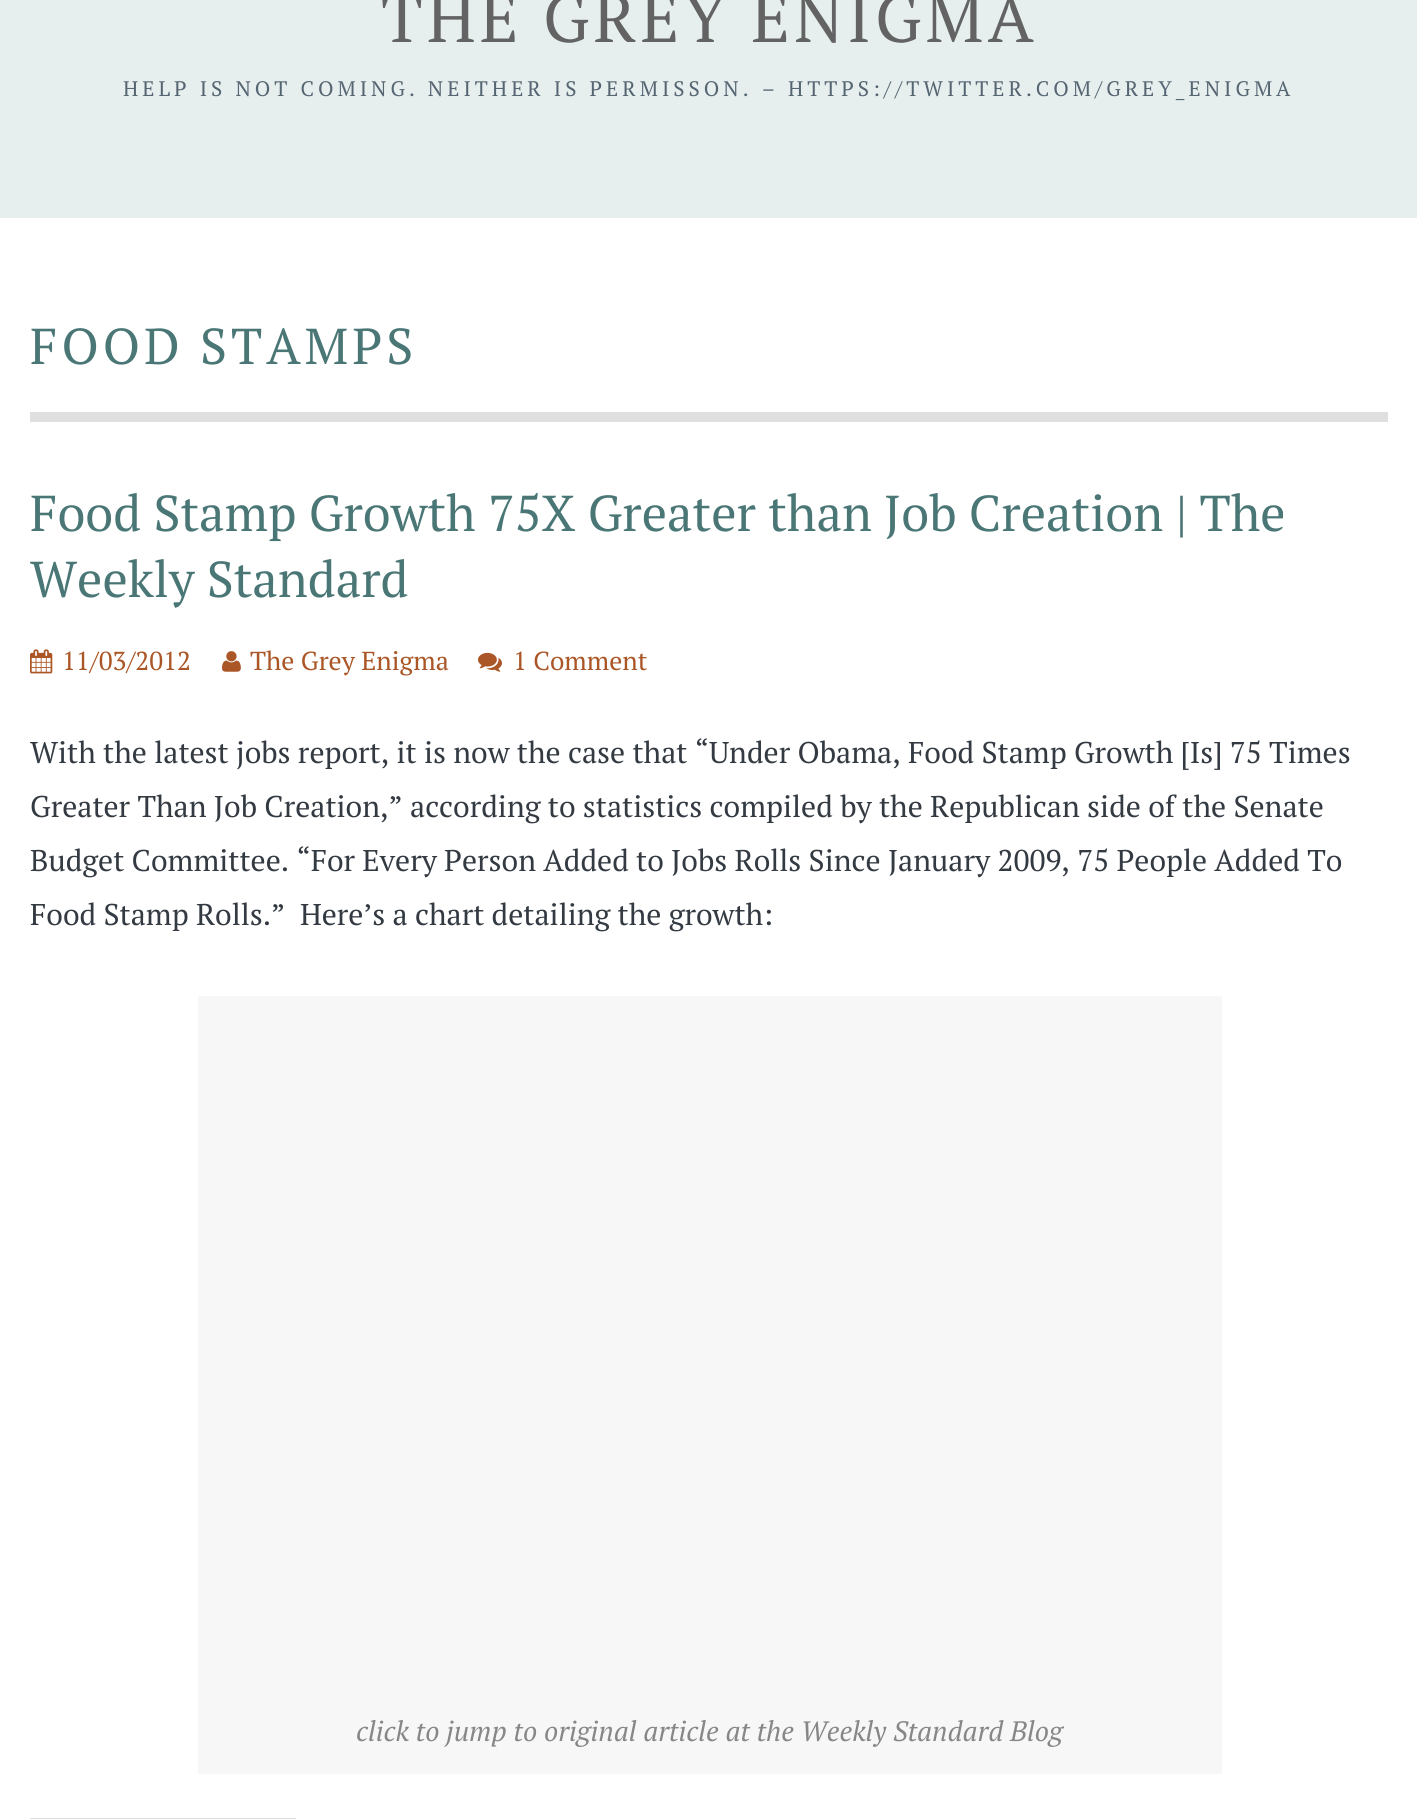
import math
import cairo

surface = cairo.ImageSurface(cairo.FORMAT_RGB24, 1417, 1819)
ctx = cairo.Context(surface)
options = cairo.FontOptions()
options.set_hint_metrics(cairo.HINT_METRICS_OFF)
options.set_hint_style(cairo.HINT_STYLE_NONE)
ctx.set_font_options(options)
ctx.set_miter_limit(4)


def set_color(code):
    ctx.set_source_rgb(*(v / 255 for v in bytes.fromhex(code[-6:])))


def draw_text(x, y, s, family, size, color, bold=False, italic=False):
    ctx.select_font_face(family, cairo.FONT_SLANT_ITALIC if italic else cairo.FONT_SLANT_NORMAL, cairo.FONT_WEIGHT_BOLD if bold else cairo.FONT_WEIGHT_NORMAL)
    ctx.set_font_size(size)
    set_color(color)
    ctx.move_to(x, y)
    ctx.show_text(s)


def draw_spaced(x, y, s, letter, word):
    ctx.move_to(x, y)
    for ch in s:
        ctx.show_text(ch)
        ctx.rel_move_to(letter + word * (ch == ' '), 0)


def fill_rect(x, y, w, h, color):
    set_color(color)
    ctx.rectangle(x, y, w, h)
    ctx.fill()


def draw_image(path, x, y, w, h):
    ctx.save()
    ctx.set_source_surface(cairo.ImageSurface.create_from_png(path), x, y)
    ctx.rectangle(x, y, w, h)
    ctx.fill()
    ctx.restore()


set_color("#ffffff")
ctx.paint()
fill_rect(0, 0, 1417, 218, "#e6eeee")
ctx.select_font_face("PT Serif")
ctx.set_font_size(67.25)
set_color("#636363")
draw_spaced(381, 42, "THE GREY ENIGMA", 4, 0)
ctx.set_font_size(21)
set_color("#556571")
draw_spaced(123, 96, "HELP IS NOT COMING. NEITHER IS PERMISSON. – HTTPS://TWITTER.COM/GREY_ENIGMA", 4, 0)
fill_rect(30, 412, 1358, 10, "#dfdfdf")
ctx.set_font_size(50.4)
set_color("#4a7776")
draw_spaced(30, 364, "FOOD STAMPS", 4, 0)
draw_text(30, 531, "Food Stamp Growth 75X Greater than Job Creation | The", "PT Serif", 50.4, "#4a7776")
draw_text(30, 597, "Weekly Standard", "PT Serif", 50.4, "#4a7776")
draw_image("assets/img1.png", 30, 649, 23, 25)
draw_text(62, 670, "11/03/2012", "PT Serif", 26, "#aa5626")
draw_image("assets/img2.png", 222, 651, 19, 21)
draw_text(250, 670, "The Grey Enigma", "PT Serif", 26, "#aa5626")
draw_image("assets/img3.png", 478, 652, 24, 20)
draw_text(513, 670, "1 Comment", "PT Serif", 26, "#aa5626")
draw_text(30, 763, "With the latest jobs report, it is now the case that “Under Obama, Food Stamp Growth [Is] 75 Times", "PT Serif", 30, "#333a42")
draw_text(30, 817, "Greater Than Job Creation,” according to statistics compiled by the Republican side of the Senate", "PT Serif", 30, "#333a42")
draw_text(30, 871, "Budget Committee. “For Every Person Added to Jobs Rolls Since January 2009, 75 People Added To", "PT Serif", 30, "#333a42")
draw_text(30, 925, "Food Stamp Rolls.”  Here’s a chart detailing the growth:", "PT Serif", 30, "#333a42")
fill_rect(198, 996, 1024, 778, "#f7f7f7")
draw_text(356, 1741, "click to jump to original article at the Weekly Standard Blog", "PT Serif", 28, "#878787", italic=True)
fill_rect(30, 1818, 266, 1, "#dcdcde")
surface.write_to_png("output.png")
